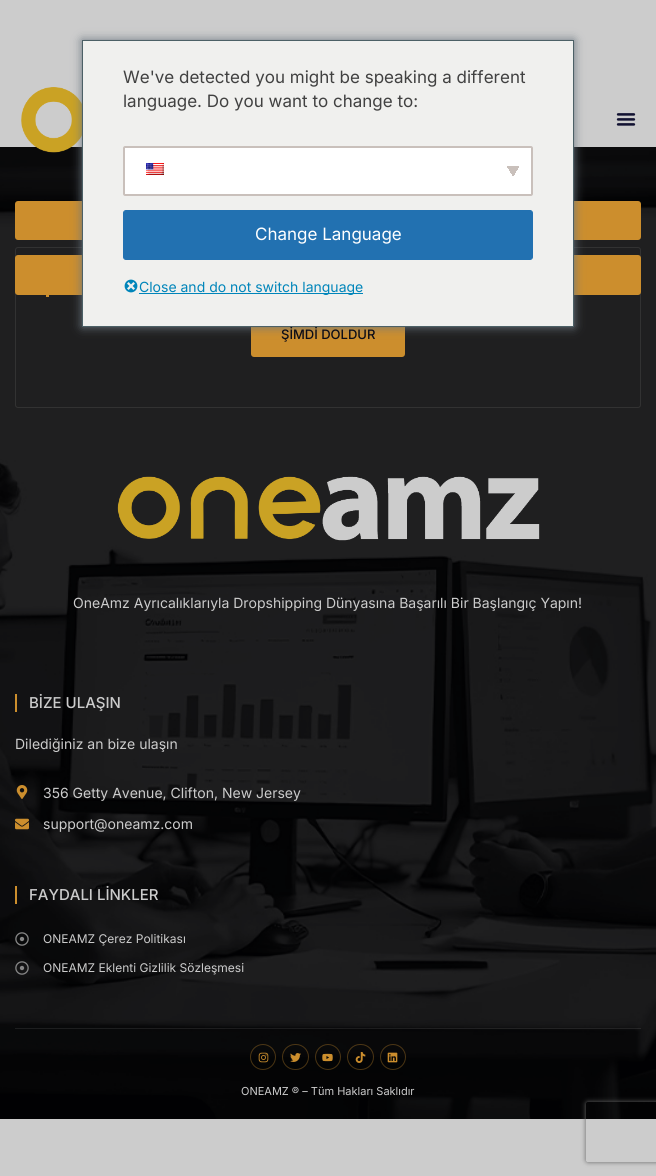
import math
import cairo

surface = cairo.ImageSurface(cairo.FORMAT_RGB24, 656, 1176)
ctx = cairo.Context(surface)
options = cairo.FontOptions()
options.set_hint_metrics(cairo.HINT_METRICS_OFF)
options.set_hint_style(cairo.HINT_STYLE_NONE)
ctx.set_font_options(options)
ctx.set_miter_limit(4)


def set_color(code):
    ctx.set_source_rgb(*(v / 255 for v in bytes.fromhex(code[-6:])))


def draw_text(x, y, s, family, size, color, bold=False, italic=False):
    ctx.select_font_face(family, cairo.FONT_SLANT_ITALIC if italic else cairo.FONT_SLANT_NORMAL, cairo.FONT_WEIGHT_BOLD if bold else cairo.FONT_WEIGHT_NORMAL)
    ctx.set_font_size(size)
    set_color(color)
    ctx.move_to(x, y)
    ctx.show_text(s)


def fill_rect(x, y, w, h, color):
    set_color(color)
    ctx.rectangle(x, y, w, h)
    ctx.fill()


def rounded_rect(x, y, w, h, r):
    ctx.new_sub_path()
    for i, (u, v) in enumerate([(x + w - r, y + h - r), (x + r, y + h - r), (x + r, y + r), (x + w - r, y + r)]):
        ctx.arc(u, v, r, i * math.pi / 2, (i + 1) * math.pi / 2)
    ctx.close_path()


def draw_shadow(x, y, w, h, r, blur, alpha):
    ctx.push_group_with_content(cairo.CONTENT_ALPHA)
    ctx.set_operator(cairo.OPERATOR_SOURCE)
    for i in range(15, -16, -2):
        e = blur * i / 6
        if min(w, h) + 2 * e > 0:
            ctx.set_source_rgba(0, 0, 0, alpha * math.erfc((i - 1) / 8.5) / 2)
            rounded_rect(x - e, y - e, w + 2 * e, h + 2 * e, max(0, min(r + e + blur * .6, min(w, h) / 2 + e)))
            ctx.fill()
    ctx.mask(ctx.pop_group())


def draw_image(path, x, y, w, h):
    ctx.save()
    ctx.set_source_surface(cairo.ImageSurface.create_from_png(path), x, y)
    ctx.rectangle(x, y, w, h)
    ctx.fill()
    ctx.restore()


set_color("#cccccc")
ctx.paint()
draw_image("assets/img5.png", 0, 147, 656, 972)
draw_image("assets/img3.png", 21, 87, 61, 66)
set_color("#cc8e2d")
rounded_rect(15, 201, 626, 39, 3)
ctx.fill()
rounded_rect(15.5, 247.5, 625, 160, 2.5)
set_color("#323232")
ctx.set_line_width(1)
ctx.stroke()
set_color("#cc8e2d")
rounded_rect(15, 255, 626, 40, 3)
ctx.fill()
rounded_rect(251, 312, 154, 45, 3)
ctx.fill()
set_color("#6c7781")
draw_shadow(82, 40, 492, 287, 0, 5, 1)
draw_text(281, 339, "ŞİMDİ DOLDUR", "Inter Medium", 13, "#0c0d17")
set_color("#f0f0ee")
ctx.rectangle(82.5, 40.5, 491, 286)
ctx.fill_preserve()
set_color("#4c6066")
ctx.stroke()
draw_text(123, 83, "We've detected you might be speaking a different", "Inter", 17, "#414141")
draw_text(123, 107, "language. Do you want to change to:", "Inter", 17, "#414141")
set_color("#ffffff")
rounded_rect(123, 146, 410, 50, 2)
ctx.fill()
gradient = cairo.LinearGradient(511, 169, 521, 175)
gradient.add_color_stop_rgba(0.5, 0.788, 0.753, 0.733, 1)
gradient.add_color_stop_rgba(0.5, 1, 1, 1, 1)
ctx.set_source(gradient)
ctx.rectangle(513, 166, 6, 12)
ctx.fill()
gradient = cairo.LinearGradient(505, 175, 515, 169)
gradient.add_color_stop_rgba(0.5, 1, 1, 1, 1)
gradient.add_color_stop_rgba(0.5, 0.788, 0.753, 0.733, 1)
ctx.set_source(gradient)
ctx.rectangle(507, 166, 6, 12)
ctx.fill()
rounded_rect(124, 147, 408, 48, 1)
set_color("#c9c0bb")
ctx.set_line_width(2)
ctx.stroke()
draw_image("assets/img1.png", 146, 163, 18, 12)
set_color("#2271b1")
rounded_rect(123.5, 210.5, 409, 49, 2.5)
ctx.fill_preserve()
ctx.set_line_width(1)
ctx.stroke()
draw_text(255, 240, "Change Language", "Inter", 17, "#ffffff")
draw_image("assets/img2.png", 124, 279, 14, 14)
fill_rect(139, 293, 224, 1, "#0085ba")
draw_text(139, 292, "Close and do not switch language", "Inter", 14, "#0085ba")
draw_image("assets/img4.png", 616, 113, 20, 13)
fill_rect(46, 295, 3, 2, "#cc8e2d")
draw_image("assets/img6.png", 117, 476, 423, 65)
draw_text(73, 608, "OneAmz Ayrıcalıklarıyla Dropshipping Dünyasına Başarılı Bir Başlangıç Yapın!", "Inter", 14, "#cccccc")
fill_rect(15, 694, 2, 18, "#cc8e2d")
draw_text(29, 708, "BİZE ULAŞIN", "Inter Medium", 15, "#cccccc")
draw_text(15, 749, "Dilediğiniz an bize ulaşın", "Inter", 14, "#cccccc")
draw_image("assets/img7.png", 16, 785, 12, 14)
draw_text(43, 798, "356 Getty Avenue, Clifton, New Jersey", "Inter", 14, "#cccccc")
draw_image("assets/img8.png", 15, 818, 14, 12)
draw_text(43, 829, "support@oneamz.com", "Inter", 14, "#cccccc")
fill_rect(15, 886, 2, 18, "#cc8e2d")
draw_text(29, 900, "FAYDALI LİNKLER", "Inter Medium", 15, "#cccccc")
draw_image("assets/img9.png", 15, 932, 14, 14)
draw_text(43, 943, "ONEAMZ Çerez Politikası", "Inter", 12, "#cccccc")
draw_image("assets/img10.png", 15, 961, 14, 14)
draw_text(43, 972, "ONEAMZ Eklenti Gizlilik Sözleşmesi", "Inter", 12, "#cccccc")
ctx.set_source_rgba(0.8, 0.8, 0.8, 0.11)
ctx.rectangle(15, 1028, 626, 1)
ctx.fill()
ctx.arc(263, 1057, 12.5, 0, 2 * math.pi)
ctx.set_source_rgba(0.8, 0.557, 0.176, 0.35)
ctx.stroke()
draw_image("assets/img11.png", 258, 1052, 11, 11)
rounded_rect(282.5, 1044.5, 26, 25, 12.5)
ctx.stroke()
draw_image("assets/img12.png", 290, 1053, 11, 9)
ctx.arc(328, 1057, 12.5, 0, 2 * math.pi)
ctx.stroke()
draw_image("assets/img13.png", 322, 1053, 11, 9)
rounded_rect(347.5, 1044.5, 26, 25, 12.5)
ctx.stroke()
draw_image("assets/img14.png", 355, 1052, 11, 11)
ctx.arc(393, 1057, 12.5, 0, 2 * math.pi)
ctx.stroke()
draw_image("assets/img15.png", 387, 1052, 11, 11)
draw_text(241, 1095, "ONEAMZ ® – Tüm Hakları Saklıdır", "Inter", 11, "#cccccc")
ctx.save()
ctx.set_fill_rule(cairo.FILL_RULE_EVEN_ODD)
ctx.new_path()
ctx.move_to(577, 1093)
ctx.line_to(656, 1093)
ctx.line_to(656, 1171)
ctx.line_to(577, 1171)
ctx.close_path()
ctx.move_to(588, 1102)
ctx.line_to(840, 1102)
ctx.curve_to(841, 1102, 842, 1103, 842, 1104)
ctx.line_to(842, 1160)
ctx.curve_to(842, 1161, 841, 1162, 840, 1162)
ctx.line_to(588, 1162)
ctx.curve_to(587, 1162, 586, 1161, 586, 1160)
ctx.line_to(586, 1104)
ctx.curve_to(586, 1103, 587, 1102, 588, 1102)
ctx.close_path()
ctx.clip()
set_color("#666666")
draw_shadow(586, 1102, 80, 60, 2, 2.5, 1)
ctx.restore()
surface.write_to_png("output.png")
